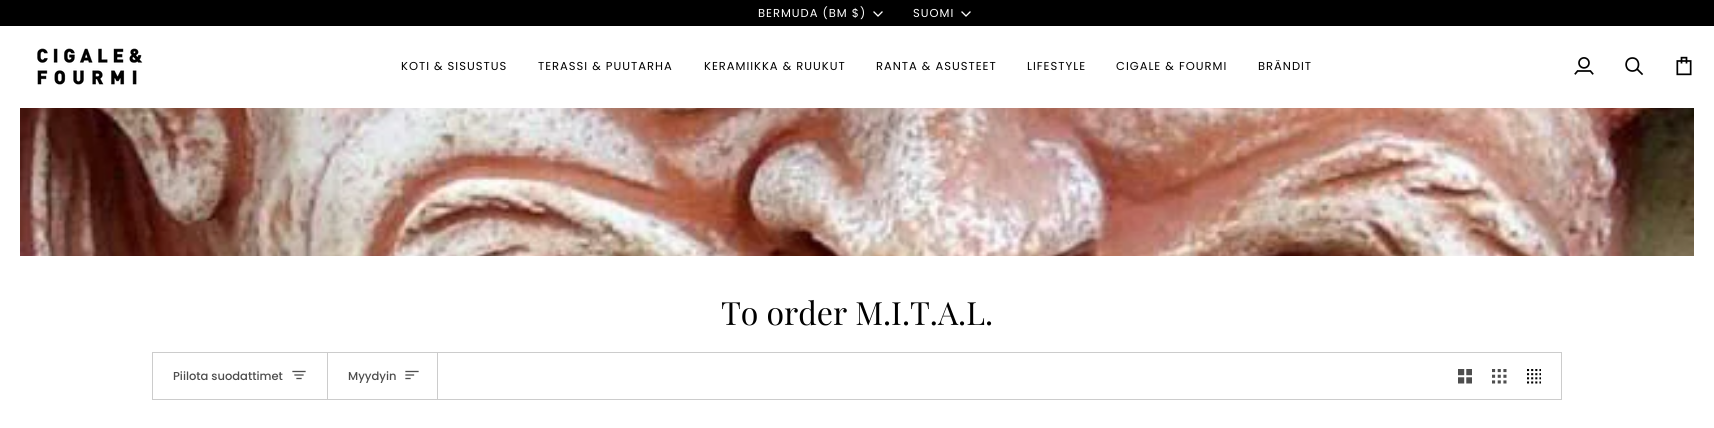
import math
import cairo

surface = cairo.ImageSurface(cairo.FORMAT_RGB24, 1714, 428)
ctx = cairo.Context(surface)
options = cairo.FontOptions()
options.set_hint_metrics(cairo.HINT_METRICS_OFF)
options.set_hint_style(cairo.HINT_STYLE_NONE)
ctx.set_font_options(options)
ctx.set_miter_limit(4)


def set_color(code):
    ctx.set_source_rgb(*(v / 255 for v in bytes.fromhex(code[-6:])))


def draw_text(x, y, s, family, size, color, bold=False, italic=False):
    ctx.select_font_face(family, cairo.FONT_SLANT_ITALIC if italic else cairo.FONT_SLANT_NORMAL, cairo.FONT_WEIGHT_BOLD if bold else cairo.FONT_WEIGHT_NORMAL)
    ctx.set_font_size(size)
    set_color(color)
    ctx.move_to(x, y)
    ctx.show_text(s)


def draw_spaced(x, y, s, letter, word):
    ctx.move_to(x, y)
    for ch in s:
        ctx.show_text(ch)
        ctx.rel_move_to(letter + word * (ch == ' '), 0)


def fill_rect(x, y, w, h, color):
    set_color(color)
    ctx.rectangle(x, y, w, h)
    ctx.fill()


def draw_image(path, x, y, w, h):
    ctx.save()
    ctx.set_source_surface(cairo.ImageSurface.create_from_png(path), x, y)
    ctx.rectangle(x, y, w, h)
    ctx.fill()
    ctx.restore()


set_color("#ffffff")
ctx.paint()
fill_rect(0, 0, 1714, 26, "#000000")
ctx.select_font_face("Poppins")
ctx.set_font_size(11.5)
set_color("#ffffff")
draw_spaced(758, 17, "BERMUDA (BM $)", 1, 0)
ctx.new_path()
ctx.move_to(874, 12)
ctx.line_to(878, 16)
ctx.line_to(882, 12)
ctx.set_line_width(1.3)
ctx.set_line_cap(cairo.LINE_CAP_SQUARE)
ctx.stroke()
draw_spaced(913, 17, "SUOMI", 1, 0)
ctx.new_path()
ctx.move_to(962, 12)
ctx.line_to(966, 16)
ctx.line_to(970, 12)
ctx.stroke()
draw_image("assets/img1.png", 37, 48, 106, 37)
set_color("#000000")
draw_spaced(401, 70, "KOTI & SISUSTUS", 1, 0)
draw_spaced(538, 70, "TERASSI & PUUTARHA", 1, 0)
draw_spaced(704, 70, "KERAMIIKKA & RUUKUT", 1, 0)
draw_spaced(876, 70, "RANTA & ASUSTEET", 1, 0)
draw_spaced(1027, 70, "LIFESTYLE", 1, 0)
draw_spaced(1116, 70, "CIGALE & FOURMI", 1, 0)
draw_spaced(1258, 70, "BRÄNDIT", 1, 0)
draw_image("assets/img2.png", 1574, 57, 20, 18)
ctx.new_path()
ctx.move_to(1632.5, 71)
ctx.curve_to(1640.5, 71, 1640.5, 58, 1632.5, 58)
ctx.curve_to(1624, 58, 1624, 71, 1632.5, 71)
ctx.close_path()
ctx.move_to(1642, 74)
ctx.line_to(1637, 69)
ctx.set_line_width(1.7)
ctx.stroke()
draw_image("assets/img3.png", 1676, 56, 16, 20)
draw_image("assets/img4.png", 20, 108, 1674, 148)
draw_text(721, 325, "To order M.I.T.A.L.", "Playfair Display", 32, "#000000")
ctx.rectangle(152.5, 352.5, 1409, 47)
set_color("#cccccc")
ctx.set_line_width(1)
ctx.set_line_cap(cairo.LINE_CAP_BUTT)
ctx.stroke()
fill_rect(327, 353, 1, 46, "#cccccc")
draw_text(173, 380, "Piilota suodattimet", "Poppins Medium", 11.5, "#4d4d4d")
ctx.new_path()
ctx.move_to(305, 371.5)
ctx.line_to(293, 371.5)
ctx.move_to(303, 375)
ctx.line_to(295, 375)
ctx.move_to(301, 378.5)
ctx.line_to(297, 378.5)
ctx.set_line_width(1.3)
ctx.set_line_cap(cairo.LINE_CAP_SQUARE)
ctx.stroke()
fill_rect(437, 353, 1, 46, "#cccccc")
draw_text(348, 380, "Myydyin", "Poppins Medium", 11.5, "#4d4d4d")
ctx.new_path()
ctx.move_to(418, 371.5)
ctx.line_to(406, 371.5)
ctx.move_to(413.5, 375)
ctx.line_to(406, 375)
ctx.move_to(410, 378.5)
ctx.line_to(406, 378.5)
ctx.stroke()
draw_image("assets/img5.png", 1458, 369, 14, 15)
draw_image("assets/img6.png", 1492, 369, 15, 15)
draw_image("assets/img7.png", 1527, 369, 14, 15)
surface.write_to_png("output.png")
